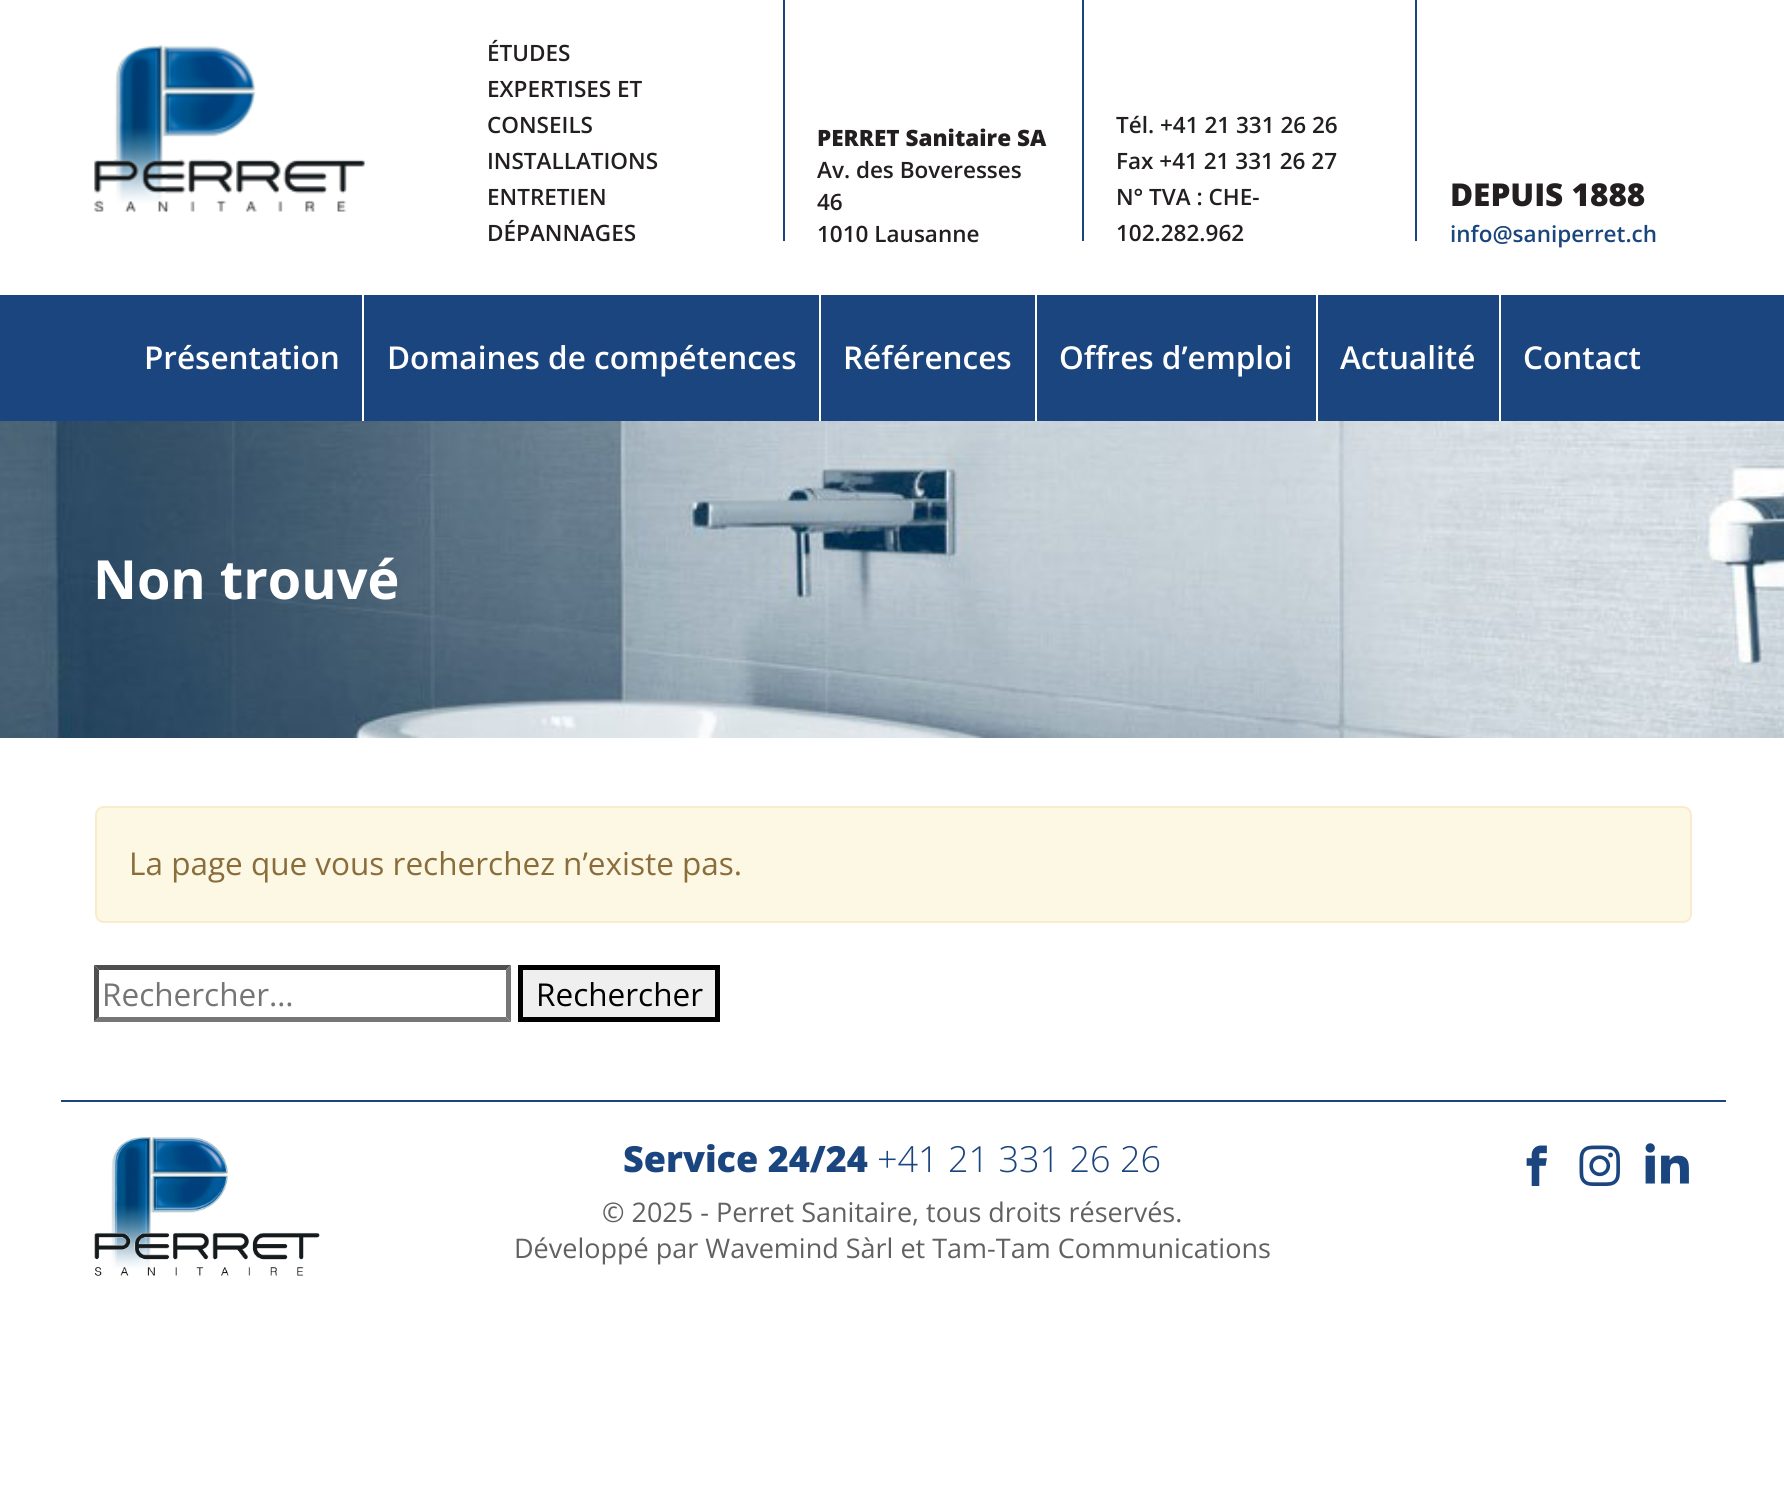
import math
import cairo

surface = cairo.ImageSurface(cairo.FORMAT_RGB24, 1784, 1491)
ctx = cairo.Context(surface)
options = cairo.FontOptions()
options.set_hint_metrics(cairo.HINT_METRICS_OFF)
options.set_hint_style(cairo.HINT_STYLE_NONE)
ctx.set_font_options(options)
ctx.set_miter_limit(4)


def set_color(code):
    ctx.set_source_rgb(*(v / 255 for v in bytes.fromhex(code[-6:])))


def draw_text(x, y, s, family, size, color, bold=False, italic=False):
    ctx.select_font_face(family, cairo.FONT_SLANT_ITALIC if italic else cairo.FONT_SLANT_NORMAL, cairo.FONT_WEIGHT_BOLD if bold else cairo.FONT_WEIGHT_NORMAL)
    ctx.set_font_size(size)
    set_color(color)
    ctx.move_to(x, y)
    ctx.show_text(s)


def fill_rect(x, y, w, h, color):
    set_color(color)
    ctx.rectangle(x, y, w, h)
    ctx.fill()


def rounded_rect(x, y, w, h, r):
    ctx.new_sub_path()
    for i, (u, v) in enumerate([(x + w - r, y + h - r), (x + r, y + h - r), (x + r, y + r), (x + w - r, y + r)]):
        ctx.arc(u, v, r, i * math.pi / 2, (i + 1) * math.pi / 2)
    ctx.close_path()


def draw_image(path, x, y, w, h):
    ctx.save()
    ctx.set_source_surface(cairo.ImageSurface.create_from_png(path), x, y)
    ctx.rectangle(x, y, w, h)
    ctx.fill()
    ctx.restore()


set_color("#ffffff")
ctx.paint()
draw_image("assets/img1.png", 94, 45, 271, 167)
draw_text(487, 61, "ÉTUDES", "Open Sans SemiBold", 22.5, "#231f20")
draw_text(487, 97, "EXPERTISES ET", "Open Sans SemiBold", 22.5, "#231f20")
draw_text(487, 133, "CONSEILS", "Open Sans SemiBold", 22.5, "#231f20")
draw_text(487, 169, "INSTALLATIONS", "Open Sans SemiBold", 22.5, "#231f20")
draw_text(487, 205, "ENTRETIEN", "Open Sans SemiBold", 22.5, "#231f20")
draw_text(487, 241, "DÉPANNAGES", "Open Sans SemiBold", 22.5, "#231f20")
fill_rect(783, 0, 2, 241, "#1b457e")
draw_text(817, 146, "PERRET Sanitaire SA", "Open Sans ExtraBold", 22.5, "#231f20")
draw_text(817, 178, "Av. des Boveresses", "Open Sans SemiBold", 22.5, "#231f20")
draw_text(817, 210, "46", "Open Sans SemiBold", 22.5, "#231f20")
draw_text(817, 242, "1010 Lausanne", "Open Sans SemiBold", 22.5, "#231f20")
fill_rect(1082, 0, 2, 241, "#1b457e")
draw_text(1116, 133, "Tél. +41 21 331 26 26", "Open Sans SemiBold", 22.5, "#231f20")
draw_text(1116, 169, "Fax +41 21 331 26 27", "Open Sans SemiBold", 22.5, "#231f20")
draw_text(1116, 205, "N° TVA : CHE-", "Open Sans SemiBold", 22.5, "#231f20")
draw_text(1116, 241, "102.282.962", "Open Sans SemiBold", 22.5, "#231f20")
fill_rect(1415, 0, 2, 241, "#1b457e")
draw_text(1450, 206, "DEPUIS 1888", "Open Sans ExtraBold", 31.5, "#231f20")
draw_text(1450, 242, "info@saniperret.ch", "Open Sans SemiBold", 22.5, "#1b457e")
fill_rect(0, 295, 1784, 126, "#1b457e")
draw_text(144, 369, "Présentation", "Open Sans SemiBold", 31.5, "#ffffff")
fill_rect(362, 295, 2, 126, "#ffffff")
draw_text(387, 369, "Domaines de compétences", "Open Sans SemiBold", 31.5, "#ffffff")
fill_rect(819, 295, 2, 126, "#ffffff")
draw_text(843, 369, "Références", "Open Sans SemiBold", 31.5, "#ffffff")
fill_rect(1035, 295, 2, 126, "#ffffff")
draw_text(1059, 369, "Offres d’emploi", "Open Sans SemiBold", 31.5, "#ffffff")
fill_rect(1316, 295, 2, 126, "#ffffff")
draw_text(1340, 369, "Actualité", "Open Sans SemiBold", 31.5, "#ffffff")
fill_rect(1499, 295, 2, 126, "#ffffff")
draw_text(1523, 369, "Contact", "Open Sans SemiBold", 31.5, "#ffffff")
draw_image("assets/img2.png", 0, 421, 1784, 317)
draw_text(93, 599, "Non trouvé", "Open Sans", 54, "#ffffff", bold=True)
set_color("#fcf8e3")
rounded_rect(96, 807, 1595, 115, 8)
ctx.fill_preserve()
set_color("#faebcc")
ctx.stroke()
draw_text(129, 875, "La page que vous recherchez n’existe pas.", "Open Sans", 31.5, "#8a6d3b")
set_color("#4f4f4f")
ctx.new_path()
ctx.move_to(94, 965)
ctx.line_to(511, 965)
ctx.line_to(506, 970)
ctx.line_to(99, 970)
ctx.close_path()
ctx.fill()
set_color("#767676")
ctx.new_path()
ctx.move_to(511, 965)
ctx.line_to(511, 1022)
ctx.line_to(506, 1017)
ctx.line_to(506, 970)
ctx.close_path()
ctx.fill()
ctx.new_path()
ctx.move_to(511, 1022)
ctx.line_to(94, 1022)
ctx.line_to(99, 1017)
ctx.line_to(506, 1017)
ctx.close_path()
ctx.fill()
set_color("#4f4f4f")
ctx.new_path()
ctx.move_to(94, 1022)
ctx.line_to(94, 965)
ctx.line_to(99, 970)
ctx.line_to(99, 1017)
ctx.close_path()
ctx.fill()
draw_text(102, 1006, "Rechercher…", "Open Sans", 31.5, "#757575")
set_color("#efefef")
ctx.rectangle(520.5, 967.5, 197, 52)
ctx.fill_preserve()
set_color("#000000")
ctx.set_line_width(5)
ctx.stroke()
draw_text(536, 1006, "Rechercher", "Open Sans", 31.5, "#000000")
fill_rect(61, 1100, 1665, 2, "#1b457e")
draw_image("assets/img3.png", 94, 1137, 226, 139)
draw_text(623, 1172, "Service 24/24", "Open Sans ExtraBold", 36, "#1b457e")
draw_text(877, 1172, "+41 21 331 26 26", "Open Sans Light", 36, "#1b457e")
draw_text(602, 1222, "© 2025 - Perret Sanitaire, tous droits réservés.", "Open Sans", 27, "#616161")
draw_text(514, 1258, "Développé par Wavemind Sàrl et Tam-Tam Communications", "Open Sans", 27, "#616161")
draw_image("assets/img4.png", 1526, 1145, 21, 41)
draw_image("assets/img5.png", 1579, 1145, 41, 41)
draw_image("assets/img6.png", 1645, 1143, 44, 41)
surface.write_to_png("output.png")
